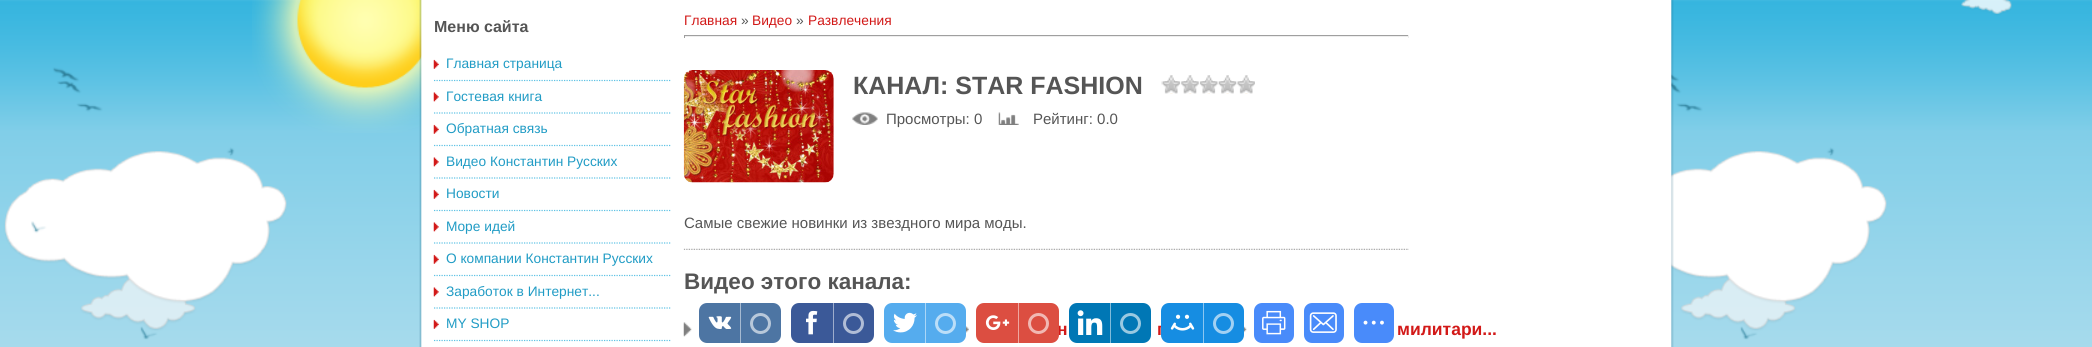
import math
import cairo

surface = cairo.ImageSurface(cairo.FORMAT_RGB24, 2092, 347)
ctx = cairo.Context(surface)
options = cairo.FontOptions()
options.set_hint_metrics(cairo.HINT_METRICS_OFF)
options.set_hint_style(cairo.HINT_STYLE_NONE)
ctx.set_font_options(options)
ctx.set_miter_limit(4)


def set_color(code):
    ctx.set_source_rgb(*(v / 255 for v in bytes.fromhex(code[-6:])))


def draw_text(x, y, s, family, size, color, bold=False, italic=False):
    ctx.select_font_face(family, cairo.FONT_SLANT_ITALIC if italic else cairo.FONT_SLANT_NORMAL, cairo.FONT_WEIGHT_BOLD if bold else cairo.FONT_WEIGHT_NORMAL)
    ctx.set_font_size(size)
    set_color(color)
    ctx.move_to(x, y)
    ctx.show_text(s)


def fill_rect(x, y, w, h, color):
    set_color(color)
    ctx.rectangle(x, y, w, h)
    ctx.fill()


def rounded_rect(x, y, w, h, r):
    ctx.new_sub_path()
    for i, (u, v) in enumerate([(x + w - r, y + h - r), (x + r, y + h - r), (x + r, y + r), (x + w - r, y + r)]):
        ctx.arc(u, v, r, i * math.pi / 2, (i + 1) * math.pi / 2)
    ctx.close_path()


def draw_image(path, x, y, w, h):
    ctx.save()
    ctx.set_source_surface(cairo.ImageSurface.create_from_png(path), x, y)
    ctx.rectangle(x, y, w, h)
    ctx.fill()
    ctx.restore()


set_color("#ffffff")
ctx.paint()
draw_image("assets/img1.png", 0, 0, 2092, 347)
draw_image("assets/img2.png", 252, 0, 170, 133)
draw_image("assets/img3.png", 419, 0, 1255, 347)
draw_text(434, 32, "Меню сайта", "Liberation Sans", 16, "#555555", bold=True)
ctx.new_path()
ctx.move_to(434, 80.5)
ctx.line_to(671, 80.5)
set_color("#5ec2e4")
ctx.set_line_width(1.2)
ctx.set_dash([1.25, 1.25])
ctx.stroke()
draw_image("assets/img4.png", 433, 59, 6, 10)
draw_text(446, 68, "Главная страница", "Liberation Sans", 13.75, "#219cc5")
ctx.new_path()
ctx.move_to(434, 113)
ctx.line_to(671, 113)
set_color("#5ec2e4")
ctx.stroke()
draw_image("assets/img5.png", 433, 92, 6, 10)
draw_text(446, 101, "Гостевая книга", "Liberation Sans", 13.75, "#219cc5")
ctx.new_path()
ctx.move_to(434, 145.5)
ctx.line_to(671, 145.5)
set_color("#5ec2e4")
ctx.stroke()
draw_image("assets/img4.png", 433, 124, 6, 10)
draw_text(446, 133, "Обратная связь", "Liberation Sans", 13.75, "#219cc5")
ctx.new_path()
ctx.move_to(434, 178)
ctx.line_to(671, 178)
set_color("#5ec2e4")
ctx.stroke()
draw_image("assets/img5.png", 433, 157, 6, 10)
draw_text(446, 166, "Видео Константин Русских", "Liberation Sans", 13.75, "#219cc5")
ctx.new_path()
ctx.move_to(434, 210.5)
ctx.line_to(671, 210.5)
set_color("#5ec2e4")
ctx.stroke()
draw_image("assets/img4.png", 433, 189, 6, 10)
draw_text(446, 198, "Новости", "Liberation Sans", 13.75, "#219cc5")
ctx.new_path()
ctx.move_to(434, 243)
ctx.line_to(671, 243)
set_color("#5ec2e4")
ctx.stroke()
draw_image("assets/img5.png", 433, 222, 6, 10)
draw_text(446, 231, "Море идей", "Liberation Sans", 13.75, "#219cc5")
ctx.new_path()
ctx.move_to(434, 275.5)
ctx.line_to(671, 275.5)
set_color("#5ec2e4")
ctx.stroke()
draw_image("assets/img4.png", 433, 254, 6, 10)
draw_text(446, 263, "О компании Константин Русских", "Liberation Sans", 13.75, "#219cc5")
ctx.new_path()
ctx.move_to(434, 308)
ctx.line_to(671, 308)
set_color("#5ec2e4")
ctx.stroke()
draw_image("assets/img5.png", 433, 287, 6, 10)
draw_text(446, 296, "Заработок в Интернет...", "Liberation Sans", 13.75, "#219cc5")
ctx.new_path()
ctx.move_to(434, 340.5)
ctx.line_to(671, 340.5)
set_color("#5ec2e4")
ctx.stroke()
draw_image("assets/img4.png", 433, 319, 6, 10)
draw_text(446, 328, "MY SHOP", "Liberation Sans", 13.75, "#219cc5")
draw_text(684, 25, "Главная", "Liberation Sans", 13.75, "#d21918")
draw_text(741, 25, "»", "Liberation Sans", 13.75, "#555555")
draw_text(752, 25, "Видео", "Liberation Sans", 13.75, "#d21918")
draw_text(796, 25, "»", "Liberation Sans", 13.75, "#555555")
draw_text(808, 25, "Развлечения", "Liberation Sans", 13.75, "#d21918")
fill_rect(684, 35, 725, 1, "#9f9f9f")
fill_rect(1408, 35, 1, 3, "#eeeeee")
fill_rect(684, 36, 725, 1, "#eeeeee")
fill_rect(684, 35, 1, 3, "#9f9f9f")
draw_image("assets/img6.png", 683, 70, 151, 113)
draw_text(853, 94, "КАНАЛ: STAR FASHION", "Liberation Sans", 25, "#555555", bold=True)
draw_image("assets/img7.png", 1161, 75, 94, 19)
draw_image("assets/img8.png", 852, 112, 26, 13)
draw_text(886, 124, "Просмотры: 0", "Liberation Sans", 15, "#555555")
draw_image("assets/img9.png", 998, 112, 21, 13)
draw_text(1033, 124, "Рейтинг: 0.0", "Liberation Sans", 15, "#555555")
draw_image("assets/img10.png", 683, 248, 726, 2)
draw_text(684, 228, "Самые свежие новинки из звездного мира моды.", "Liberation Sans", 15, "#555555")
draw_text(684, 289, "Видео этого канала:", "Liberation Sans", 22.5, "#555555", bold=True)
draw_image("assets/img11.png", 683, 322, 9, 15)
draw_image("assets/img12.png", 966, 326, 3, 7)
draw_text(1057, 335, "н", "Liberation Sans", 17.5, "#d21918", bold=True)
draw_text(1157, 335, "г", "Liberation Sans", 17.5, "#d21918", bold=True)
draw_image("assets/img13.png", 1244, 326, 3, 7)
draw_text(1397, 335, "милитари...", "Liberation Sans", 17.5, "#d21918", bold=True)
set_color("#4d75a3")
rounded_rect(699, 303, 82, 40, 8)
ctx.fill()
draw_image("assets/img14.png", 708, 316, 24, 13)
fill_rect(740, 303, 1, 40, "#a6bad1")
ctx.arc(760.5, 323.5, 9, 0, 2 * math.pi)
set_color("#b8c8da")
ctx.set_line_width(3)
ctx.set_dash([])
ctx.stroke()
set_color("#3b5998")
rounded_rect(791, 303, 83, 40, 8)
ctx.fill()
draw_image("assets/img15.png", 806, 310, 12, 25)
fill_rect(833, 303, 1, 40, "#9daccc")
ctx.arc(853.5, 323.5, 9, 0, 2 * math.pi)
set_color("#b1bdd6")
ctx.stroke()
set_color("#55acee")
rounded_rect(884, 303, 82, 40, 8)
ctx.fill()
draw_image("assets/img16.png", 893, 312, 24, 21)
fill_rect(925, 303, 1, 40, "#aad6f7")
ctx.arc(945.5, 323.5, 9, 0, 2 * math.pi)
set_color("#bbdef8")
ctx.stroke()
set_color("#dc4e41")
rounded_rect(976, 303, 83, 40, 8)
ctx.fill()
draw_image("assets/img17.png", 985, 315, 25, 15)
fill_rect(1018, 303, 1, 40, "#eea7a0")
ctx.arc(1038.5, 323.5, 9, 0, 2 * math.pi)
set_color("#f1b8b3")
ctx.stroke()
set_color("#0077b5")
rounded_rect(1069, 303, 82, 40, 8)
ctx.fill()
draw_image("assets/img18.png", 1077, 310, 26, 25)
fill_rect(1110, 303, 1, 40, "#80bbda")
ctx.arc(1130.5, 323.5, 9, 0, 2 * math.pi)
set_color("#99c9e1")
ctx.stroke()
set_color("#168de2")
rounded_rect(1161, 303, 83, 40, 8)
ctx.fill()
draw_image("assets/img19.png", 1170, 314, 25, 17)
fill_rect(1203, 303, 1, 40, "#8bc6f1")
ctx.arc(1223.5, 323.5, 9, 0, 2 * math.pi)
set_color("#a2d1f3")
ctx.stroke()
set_color("#498bfa")
rounded_rect(1254, 303, 40, 40, 8)
ctx.fill()
draw_image("assets/img20.png", 1262, 310, 24, 25)
rounded_rect(1304, 303, 40, 40, 8)
ctx.fill()
draw_image("assets/img21.png", 1309, 312, 28, 21)
rounded_rect(1354, 303, 40, 40, 8)
ctx.fill()
draw_image("assets/img22.png", 1363, 320, 21, 5)
surface.write_to_png("output.png")
